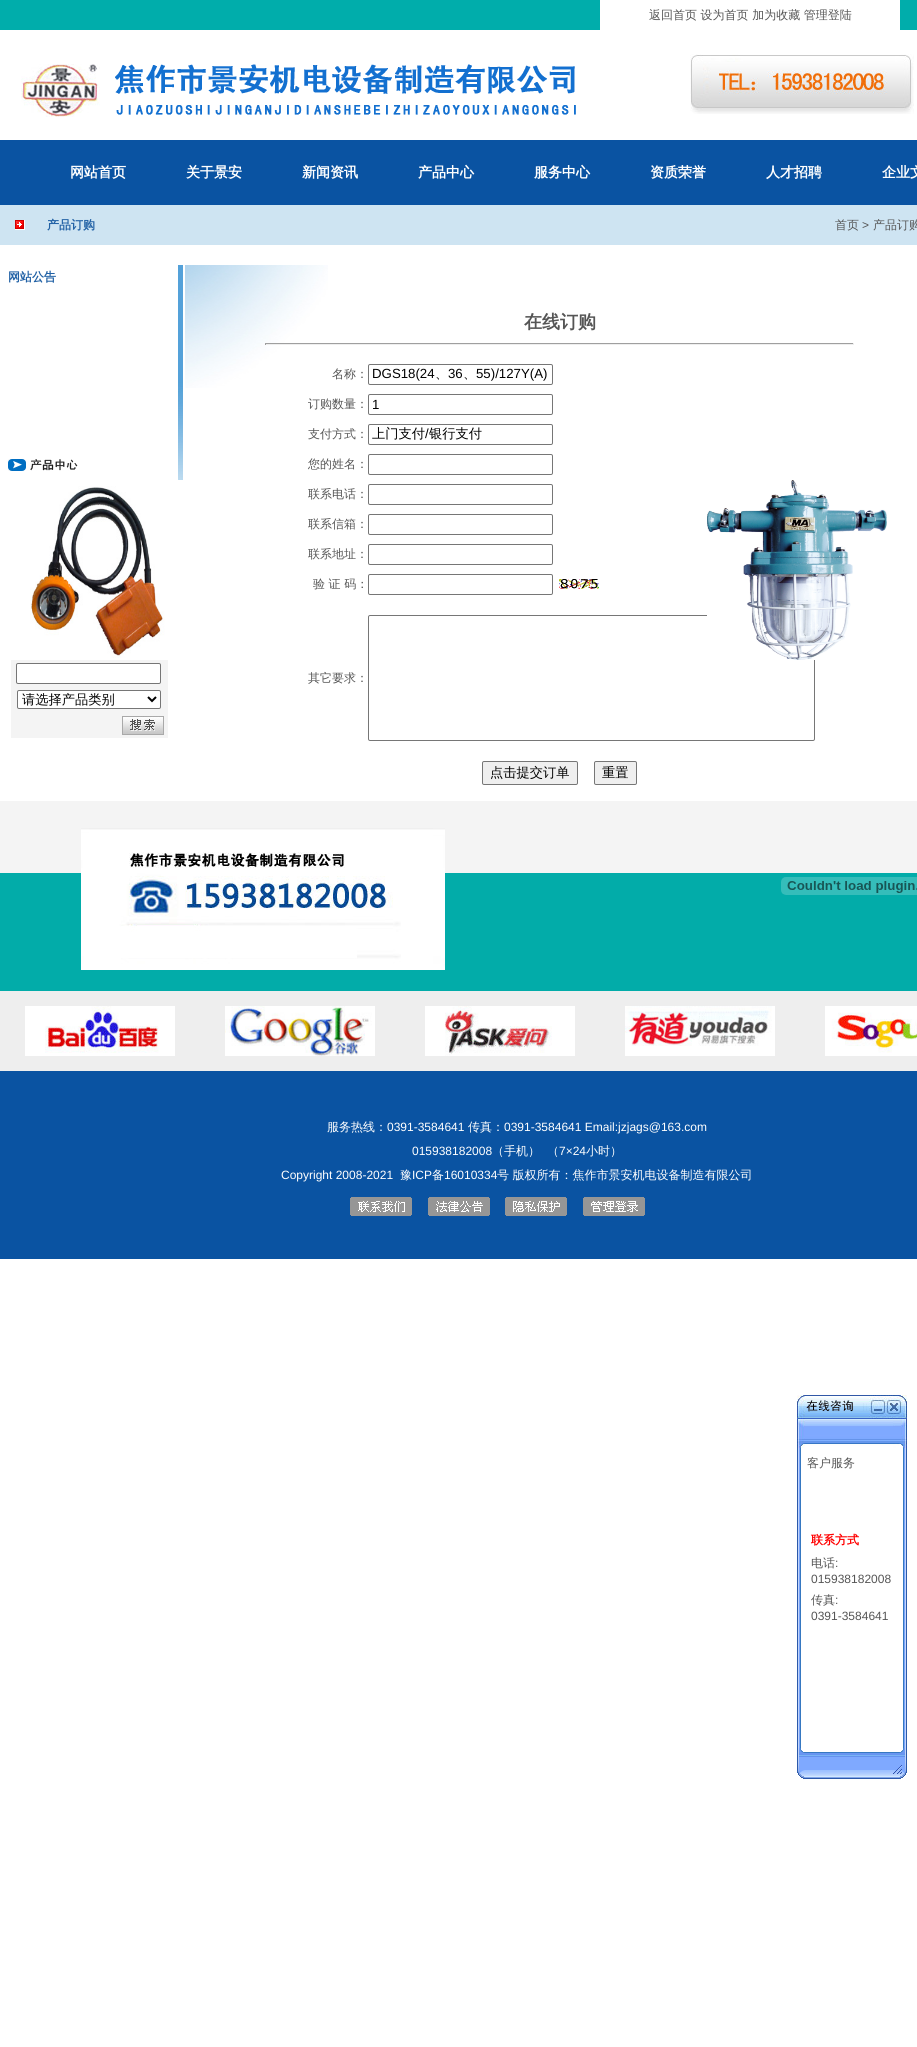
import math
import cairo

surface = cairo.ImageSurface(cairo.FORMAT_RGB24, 917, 2047)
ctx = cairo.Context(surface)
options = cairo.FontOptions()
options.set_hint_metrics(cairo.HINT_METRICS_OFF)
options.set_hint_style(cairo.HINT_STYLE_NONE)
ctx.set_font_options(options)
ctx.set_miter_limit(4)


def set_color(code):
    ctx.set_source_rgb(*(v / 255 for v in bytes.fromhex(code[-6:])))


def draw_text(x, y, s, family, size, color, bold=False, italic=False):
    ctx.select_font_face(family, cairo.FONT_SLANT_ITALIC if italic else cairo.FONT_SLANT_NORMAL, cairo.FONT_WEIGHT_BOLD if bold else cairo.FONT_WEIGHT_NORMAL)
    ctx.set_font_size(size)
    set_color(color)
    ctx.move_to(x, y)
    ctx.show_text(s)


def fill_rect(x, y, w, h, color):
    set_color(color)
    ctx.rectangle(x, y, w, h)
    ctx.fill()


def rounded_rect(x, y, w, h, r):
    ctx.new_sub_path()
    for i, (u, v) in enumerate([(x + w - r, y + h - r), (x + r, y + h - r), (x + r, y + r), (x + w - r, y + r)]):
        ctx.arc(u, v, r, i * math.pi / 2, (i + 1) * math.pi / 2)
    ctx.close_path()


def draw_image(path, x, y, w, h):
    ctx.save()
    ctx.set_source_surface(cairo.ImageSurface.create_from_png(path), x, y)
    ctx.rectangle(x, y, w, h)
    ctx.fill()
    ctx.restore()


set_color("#ffffff")
ctx.paint()
fill_rect(0, 0, 917, 30, "#00adab")
fill_rect(600, 0, 300, 30, "#ffffff")
draw_text(649, 19, "返回首页 设为首页 加为收藏 管理登陆", "WenQuanYi Zen Hei Medium", 12, "#555555")
draw_image("assets/img1.png", 21, 64, 555, 53)
draw_image("assets/img2.png", 690, 54, 224, 60)
fill_rect(0, 140, 917, 65, "#0a53a2")
draw_text(70, 177, "网站首页", "WenQuanYi Zen Hei", 14, "#ffffff", bold=True)
draw_text(186, 177, "关于景安", "WenQuanYi Zen Hei", 14, "#ffffff", bold=True)
draw_text(302, 177, "新闻资讯", "WenQuanYi Zen Hei", 14, "#ffffff", bold=True)
draw_text(418, 177, "产品中心", "WenQuanYi Zen Hei", 14, "#ffffff", bold=True)
draw_text(534, 177, "服务中心", "WenQuanYi Zen Hei", 14, "#ffffff", bold=True)
draw_text(650, 177, "资质荣誉", "WenQuanYi Zen Hei", 14, "#ffffff", bold=True)
draw_text(766, 177, "人才招聘", "WenQuanYi Zen Hei", 14, "#ffffff", bold=True)
draw_text(882, 177, "企业文", "WenQuanYi Zen Hei", 14, "#ffffff", bold=True)
fill_rect(0, 205, 917, 40, "#cee4f2")
draw_image("assets/img3.png", 15, 220, 10, 10)
draw_text(47, 229, "产品订购", "WenQuanYi Zen Hei", 12, "#2161a5", bold=True)
draw_text(835, 229, "首页", "WenQuanYi Zen Hei Medium", 12, "#555555")
draw_text(862, 229, ">", "Liberation Sans", 12, "#555555")
draw_text(873, 229, "产品订购", "WenQuanYi Zen Hei Medium", 12, "#555555")
draw_text(8, 281, "网站公告", "WenQuanYi Zen Hei", 12, "#2161a5", bold=True)
draw_image("assets/img4.png", 8, 459, 70, 12)
fill_rect(11, 660, 157, 78, "#f4f4f4")
set_color("#ffffff")
rounded_rect(16.5, 663.5, 144, 20, 1.5)
ctx.fill_preserve()
set_color("#767676")
ctx.set_line_width(1)
ctx.stroke()
set_color("#ffffff")
rounded_rect(17.5, 690.5, 143, 18, 1.5)
ctx.fill_preserve()
set_color("#767676")
ctx.stroke()
ctx.new_path()
ctx.move_to(148, 697)
ctx.line_to(152, 701)
ctx.line_to(156, 697)
set_color("#000000")
ctx.set_line_width(2)
ctx.stroke()
draw_text(22, 704, "请选择产品类别", "WenQuanYi Zen Hei Medium", 13.25, "#000000")
draw_image("assets/img5.png", 122, 716, 42, 19)
draw_image("assets/img6.png", 178, 265, 5, 215)
draw_image("assets/img7.png", 185, 265, 143, 123)
draw_text(524, 328, "在线订购", "WenQuanYi Zen Hei", 18, "#555555", bold=True)
fill_rect(265, 343, 589, 1, "#9f9f9f")
fill_rect(853, 343, 1, 2, "#eeeeee")
fill_rect(265, 344, 589, 1, "#eeeeee")
fill_rect(265, 343, 1, 2, "#9f9f9f")
draw_text(332, 378, "名称：", "WenQuanYi Zen Hei Medium", 12, "#555555")
rounded_rect(368.5, 364.5, 184, 20, 1.5)
set_color("#767676")
ctx.set_line_width(1)
ctx.stroke()
draw_text(372, 378, "DGS18(24", "Liberation Sans", 13.25, "#000000")
draw_text(435, 378, "、", "WenQuanYi Zen Hei Medium", 13.25, "#000000")
draw_text(448, 378, "36", "Liberation Sans", 13.25, "#000000")
draw_text(463, 378, "、", "WenQuanYi Zen Hei Medium", 13.25, "#000000")
draw_text(476, 378, "55)/127Y(A)", "Liberation Sans", 13.25, "#000000")
draw_text(308, 408, "订购数量：", "WenQuanYi Zen Hei Medium", 12, "#555555")
rounded_rect(368.5, 394.5, 184, 20, 1.5)
set_color("#767676")
ctx.stroke()
draw_text(372, 409, "1", "Liberation Sans", 13.25, "#000000")
draw_text(308, 438, "支付方式：", "WenQuanYi Zen Hei Medium", 12, "#555555")
rounded_rect(368.5, 424.5, 184, 20, 1.5)
set_color("#767676")
ctx.stroke()
draw_text(372, 438, "上门支付", "WenQuanYi Zen Hei Medium", 13.25, "#000000")
draw_text(425, 438, "/", "Liberation Sans", 13.25, "#000000")
draw_text(429, 438, "银行支付", "WenQuanYi Zen Hei Medium", 13.25, "#000000")
draw_text(308, 468, "您的姓名：", "WenQuanYi Zen Hei Medium", 12, "#555555")
rounded_rect(368.5, 454.5, 184, 20, 1.5)
set_color("#767676")
ctx.stroke()
draw_text(308, 498, "联系电话：", "WenQuanYi Zen Hei Medium", 12, "#555555")
rounded_rect(368.5, 484.5, 184, 20, 1.5)
set_color("#767676")
ctx.stroke()
draw_text(308, 528, "联系信箱：", "WenQuanYi Zen Hei Medium", 12, "#555555")
rounded_rect(368.5, 514.5, 184, 20, 1.5)
set_color("#767676")
ctx.stroke()
draw_text(308, 558, "联系地址：", "WenQuanYi Zen Hei Medium", 12, "#555555")
rounded_rect(368.5, 544.5, 184, 20, 1.5)
set_color("#767676")
ctx.stroke()
draw_text(313, 588, "验 证 码：", "WenQuanYi Zen Hei Medium", 12, "#555555")
rounded_rect(368.5, 574.5, 184, 20, 1.5)
set_color("#767676")
ctx.stroke()
draw_image("assets/img8.png", 559, 579, 40, 10)
draw_text(308, 682, "其它要求：", "WenQuanYi Zen Hei Medium", 12, "#555555")
rounded_rect(368.5, 615.5, 446, 125, 1.5)
set_color("#767676")
ctx.stroke()
set_color("#efefef")
rounded_rect(482.5, 761.5, 95, 23, 1.5)
ctx.fill_preserve()
set_color("#767676")
ctx.stroke()
draw_text(490, 777, "点击提交订单", "WenQuanYi Zen Hei Medium", 13.25, "#000000")
set_color("#efefef")
rounded_rect(594.5, 761.5, 42, 23, 1.5)
ctx.fill_preserve()
set_color("#767676")
ctx.stroke()
draw_text(602, 777, "重置", "WenQuanYi Zen Hei Medium", 13.25, "#000000")
draw_image("assets/img9.png", 13, 480, 170, 178)
draw_image("assets/img10.png", 707, 480, 180, 180)
draw_image("assets/img11.png", 0, 801, 917, 190)
draw_image("assets/img12.png", 81, 828, 364, 142)
draw_image("assets/img13.png", 781, 877, 136, 18)
fill_rect(0, 991, 917, 80, "#eeeeee")
draw_image("assets/img14.png", 25, 1006, 150, 50)
draw_image("assets/img15.png", 225, 1006, 150, 50)
draw_image("assets/img16.png", 425, 1006, 150, 50)
draw_image("assets/img17.png", 625, 1006, 150, 50)
draw_image("assets/img18.png", 825, 1006, 92, 50)
fill_rect(0, 1071, 917, 188, "#0a53a2")
draw_text(327, 1131, "服务热线：", "WenQuanYi Zen Hei Medium", 12, "#ffffff")
draw_text(387, 1131, "0391-3584641", "Liberation Sans", 12, "#ffffff")
draw_text(468, 1131, "传真：", "WenQuanYi Zen Hei Medium", 12, "#ffffff")
draw_text(504, 1131, "0391-3584641 Email:jzjags@163.com", "Liberation Sans", 12, "#ffffff")
draw_text(412, 1155, "015938182008", "Liberation Sans", 12, "#ffffff")
draw_text(492, 1155, "（手机）", "WenQuanYi Zen Hei Medium", 12, "#ffffff")
draw_text(547, 1155, "（", "WenQuanYi Zen Hei Medium", 12, "#ffffff")
draw_text(559, 1155, "7×24", "Liberation Sans", 12, "#ffffff")
draw_text(586, 1155, "小时）", "WenQuanYi Zen Hei Medium", 12, "#ffffff")
draw_text(281, 1179, "Copyright 2008-2021", "Liberation Sans", 12, "#ffffff")
draw_text(400, 1179, "豫", "WenQuanYi Zen Hei Medium", 12, "#ffffff")
draw_text(412, 1179, "ICP", "Liberation Sans", 12, "#ffffff")
draw_text(432, 1179, "备", "WenQuanYi Zen Hei Medium", 12, "#ffffff")
draw_text(444, 1179, "16010334", "Liberation Sans", 12, "#ffffff")
draw_text(497, 1179, "号 版权所有：焦作市景安机电设备制造有限公司", "WenQuanYi Zen Hei Medium", 12, "#ffffff")
draw_image("assets/img19.png", 350, 1197, 62, 19)
draw_image("assets/img20.png", 428, 1197, 62, 19)
draw_image("assets/img21.png", 505, 1197, 62, 19)
draw_image("assets/img22.png", 583, 1197, 62, 19)
draw_image("assets/img23.png", 797, 1395, 110, 53)
draw_image("assets/img24.png", 797, 1448, 4, 300)
draw_text(807, 1467, "客户服务", "WenQuanYi Zen Hei Medium", 12, "#555555")
draw_text(811, 1544, "联系方式", "WenQuanYi Zen Hei", 12, "#ff0000", bold=True)
draw_text(811, 1567, "电话", "WenQuanYi Zen Hei Medium", 12, "#555555")
draw_text(835, 1567, ":", "Liberation Sans", 12, "#555555")
draw_text(811, 1583, "015938182008", "Liberation Sans", 12, "#555555")
draw_text(811, 1604, "传真", "WenQuanYi Zen Hei Medium", 12, "#555555")
draw_text(835, 1604, ":", "Liberation Sans", 12, "#555555")
draw_text(811, 1620, "0391-3584641", "Liberation Sans", 12, "#555555")
draw_image("assets/img25.png", 903, 1448, 4, 300)
draw_image("assets/img26.png", 797, 1748, 110, 31)
surface.write_to_png("output.png")
